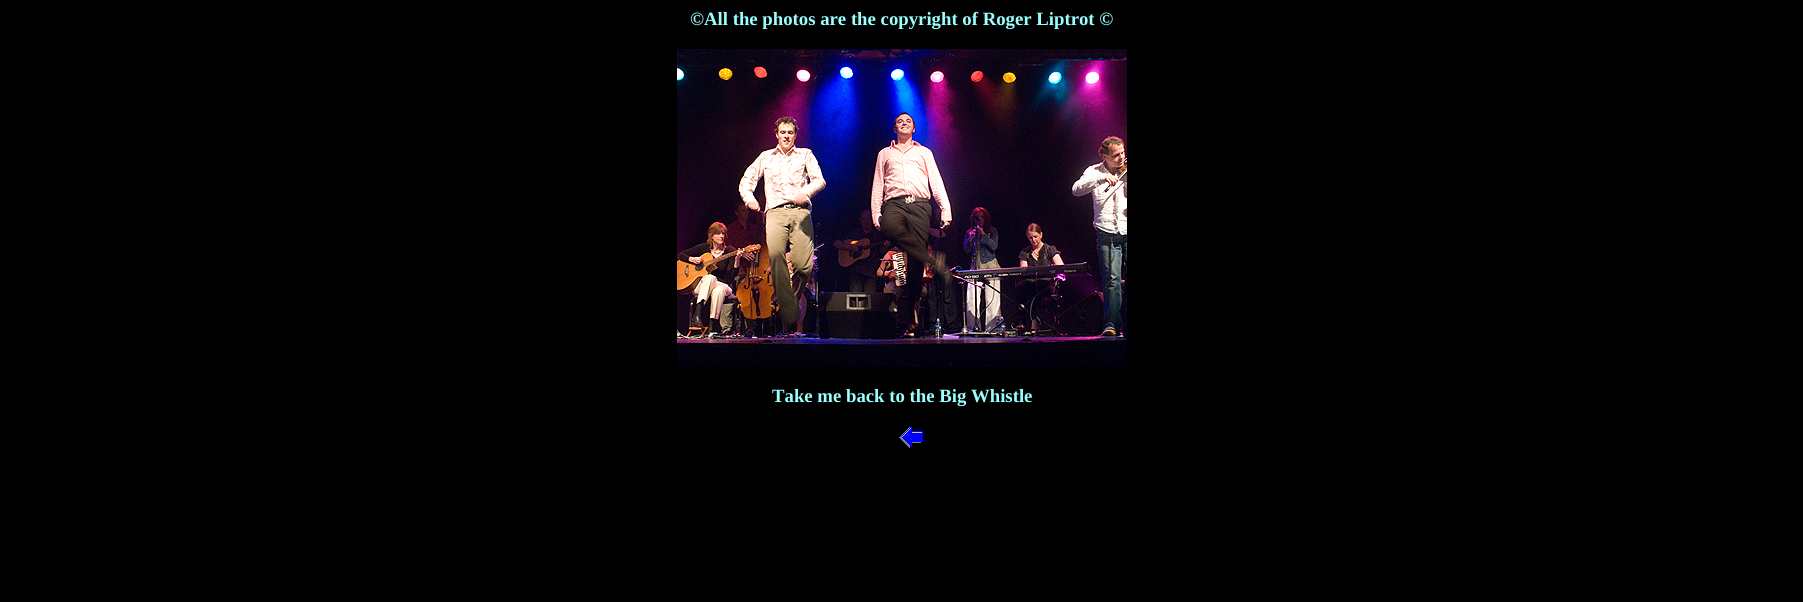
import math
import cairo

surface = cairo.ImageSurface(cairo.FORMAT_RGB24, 1803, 602)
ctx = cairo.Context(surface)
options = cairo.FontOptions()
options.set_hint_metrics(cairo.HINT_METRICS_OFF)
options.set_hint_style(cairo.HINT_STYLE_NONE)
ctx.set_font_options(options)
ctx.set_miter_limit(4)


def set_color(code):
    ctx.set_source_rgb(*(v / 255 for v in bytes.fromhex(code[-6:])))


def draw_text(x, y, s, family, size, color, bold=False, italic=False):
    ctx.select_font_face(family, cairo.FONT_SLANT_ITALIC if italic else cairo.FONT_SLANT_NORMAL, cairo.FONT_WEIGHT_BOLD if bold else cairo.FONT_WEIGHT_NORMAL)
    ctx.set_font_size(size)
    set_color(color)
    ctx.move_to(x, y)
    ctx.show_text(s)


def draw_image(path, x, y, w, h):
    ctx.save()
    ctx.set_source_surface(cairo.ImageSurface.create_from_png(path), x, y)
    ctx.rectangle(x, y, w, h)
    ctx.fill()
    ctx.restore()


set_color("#000000")
ctx.paint()
draw_text(690, 25, "©All the photos are the copyright of Roger Liptrot ©", "Liberation Serif", 18.75, "#99ffff", bold=True)
draw_image("assets/img1.png", 677, 49, 450, 318)
draw_text(772, 402, "Take me back to the Big Whistle", "Liberation Serif", 18.75, "#99ffff", bold=True)
draw_image("assets/img2.png", 899, 426, 24, 22)
surface.write_to_png("output.png")
